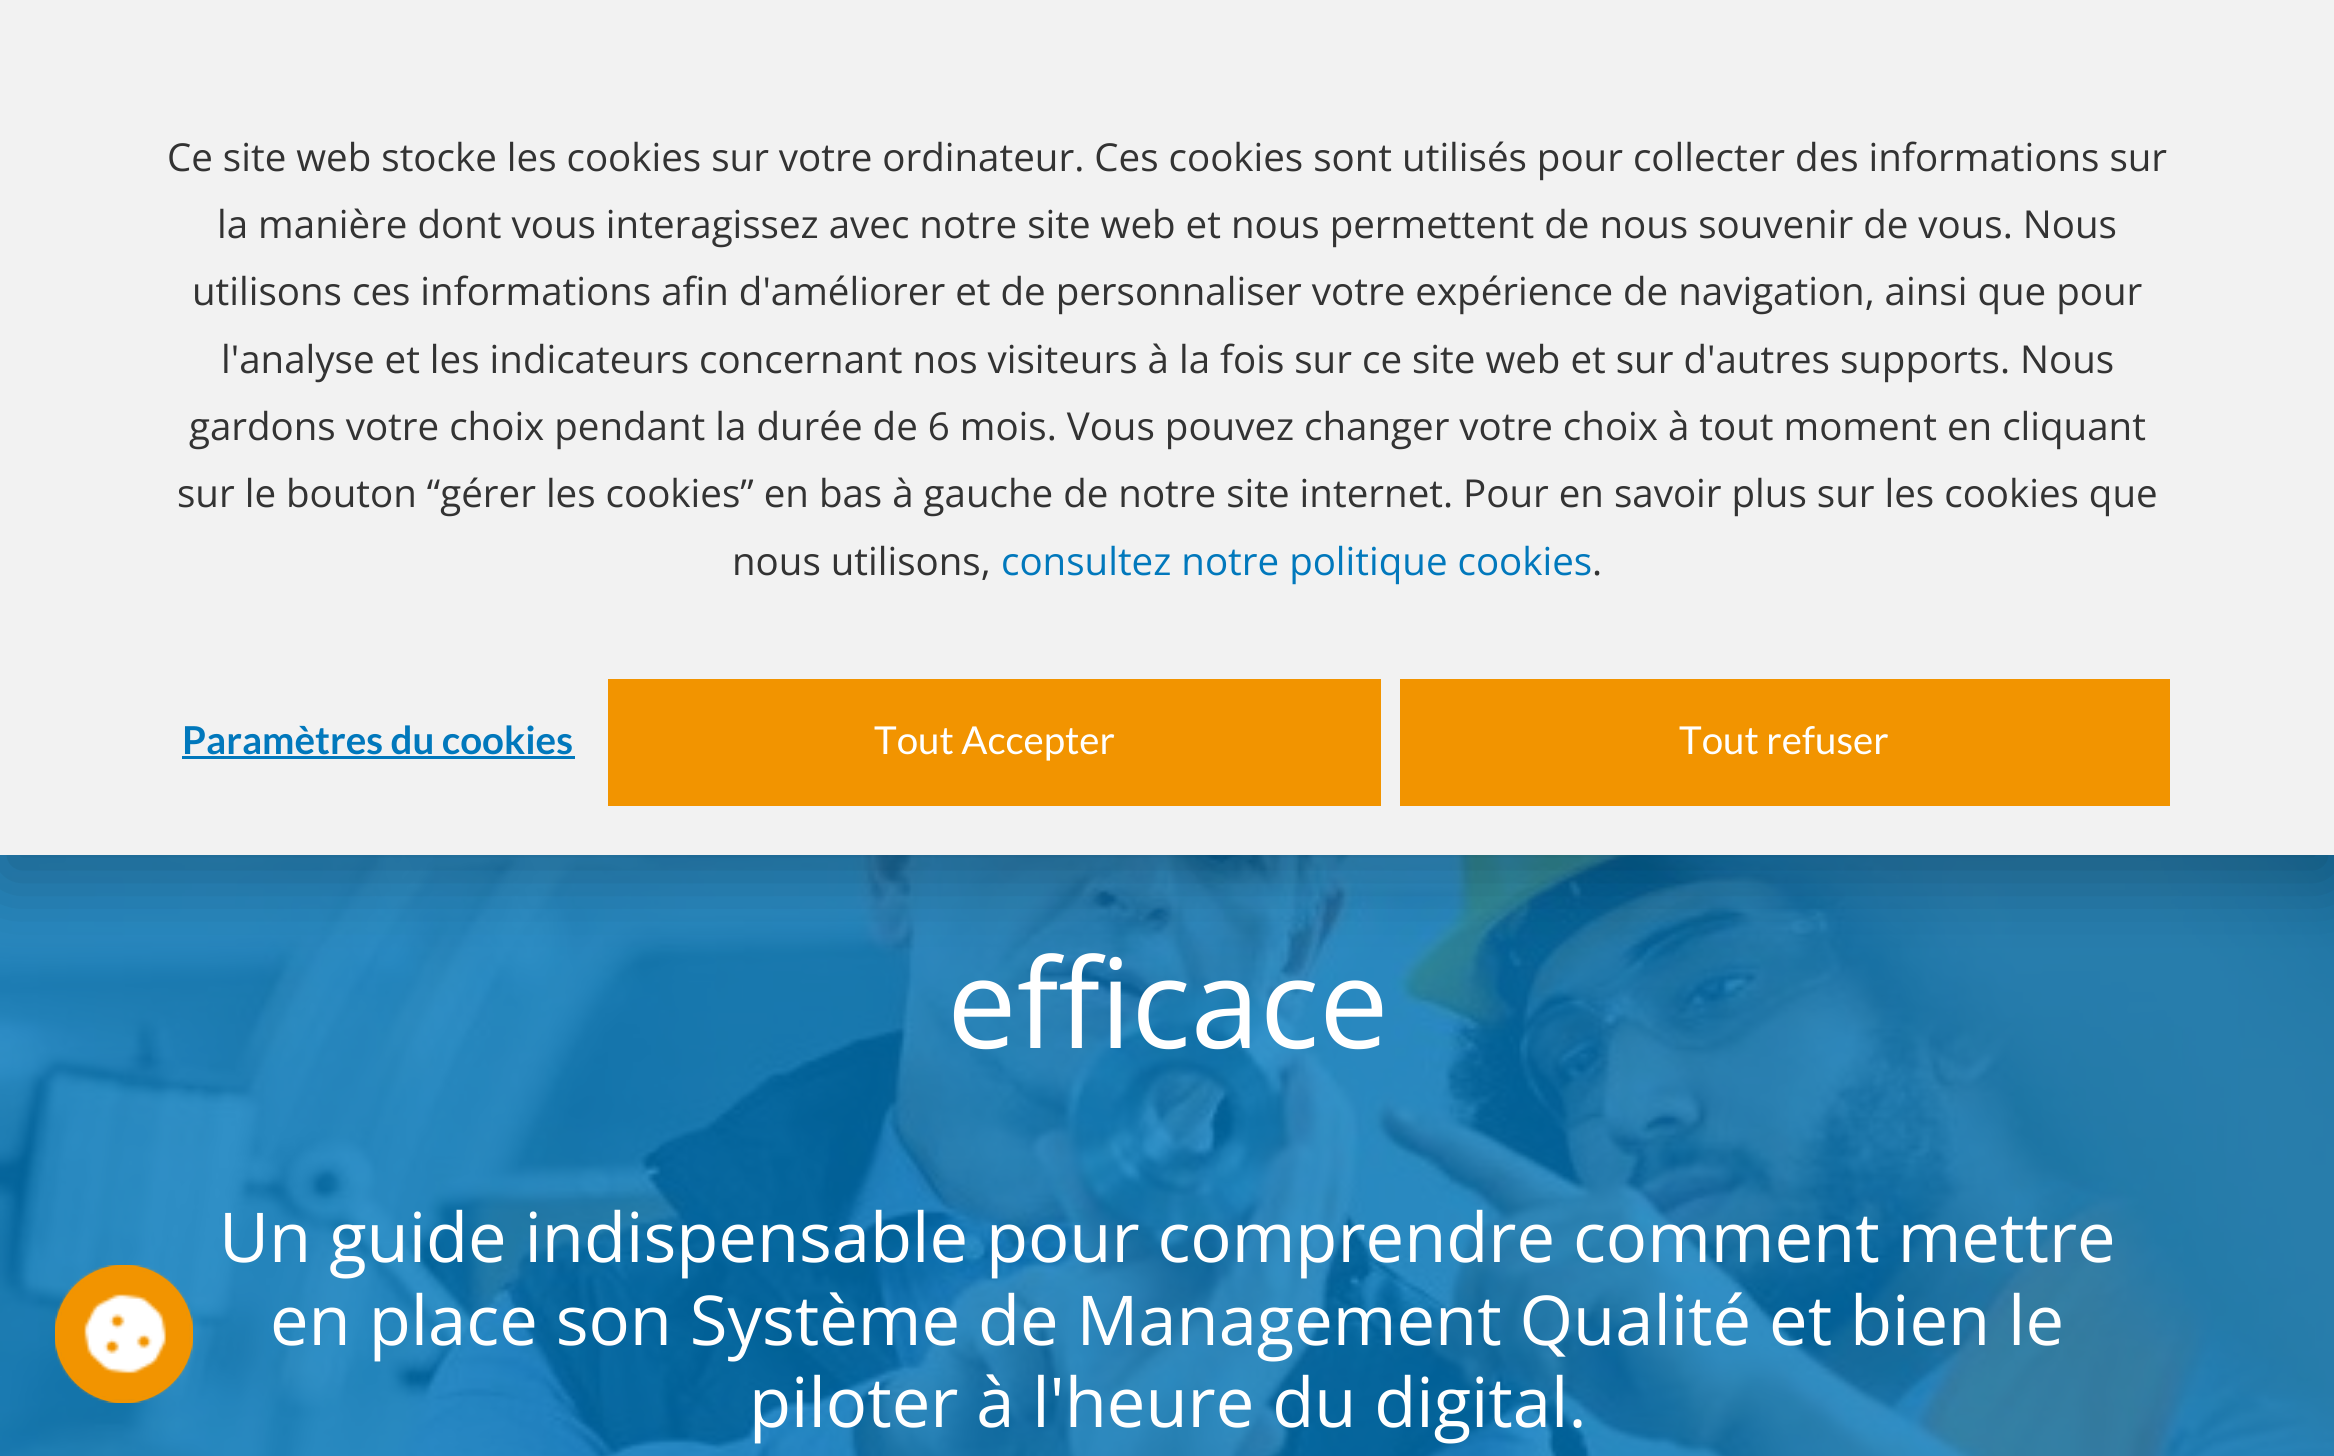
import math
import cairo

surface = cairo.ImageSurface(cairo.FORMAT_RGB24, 2334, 1456)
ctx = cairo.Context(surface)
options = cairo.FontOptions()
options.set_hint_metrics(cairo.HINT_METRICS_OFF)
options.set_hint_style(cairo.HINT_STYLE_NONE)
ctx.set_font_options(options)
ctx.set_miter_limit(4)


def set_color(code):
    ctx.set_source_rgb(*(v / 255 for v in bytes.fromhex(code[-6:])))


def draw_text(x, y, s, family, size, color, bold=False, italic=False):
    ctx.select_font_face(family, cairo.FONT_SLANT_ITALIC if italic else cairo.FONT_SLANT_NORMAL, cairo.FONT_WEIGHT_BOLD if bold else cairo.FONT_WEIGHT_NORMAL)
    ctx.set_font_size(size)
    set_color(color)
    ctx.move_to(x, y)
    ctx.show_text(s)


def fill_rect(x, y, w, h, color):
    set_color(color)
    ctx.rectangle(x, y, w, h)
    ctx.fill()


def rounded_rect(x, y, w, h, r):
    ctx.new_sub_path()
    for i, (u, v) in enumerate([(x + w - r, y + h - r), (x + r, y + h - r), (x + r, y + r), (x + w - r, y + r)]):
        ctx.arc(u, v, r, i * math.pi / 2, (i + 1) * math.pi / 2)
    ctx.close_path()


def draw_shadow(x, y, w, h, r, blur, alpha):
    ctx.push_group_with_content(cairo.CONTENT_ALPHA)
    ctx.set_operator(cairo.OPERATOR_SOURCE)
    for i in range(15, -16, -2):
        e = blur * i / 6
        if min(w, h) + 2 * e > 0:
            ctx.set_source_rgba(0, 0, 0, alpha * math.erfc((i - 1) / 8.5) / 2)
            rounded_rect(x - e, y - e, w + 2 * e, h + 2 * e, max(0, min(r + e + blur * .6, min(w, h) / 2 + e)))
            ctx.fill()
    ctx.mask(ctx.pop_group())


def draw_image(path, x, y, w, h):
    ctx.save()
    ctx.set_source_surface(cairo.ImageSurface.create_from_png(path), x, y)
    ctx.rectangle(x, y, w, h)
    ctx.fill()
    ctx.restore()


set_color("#ffffff")
ctx.paint()
draw_image("assets/img2.png", 0, 855, 2334, 601)
set_color("#000000")
draw_shadow(0, 22, 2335, 855, 0, 38.5, 0.28)
fill_rect(0, 0, 2334, 855, "#f2f2f2")
draw_text(167, 171, "Ce site web stocke les cookies sur votre ordinateur. Ces cookies sont utilisés pour collecter des informations sur", "Open Sans", 38.5, "#333333")
draw_text(217, 238, "la manière dont vous interagissez avec notre site web et nous permettent de nous souvenir de vous. Nous", "Open Sans", 38.5, "#333333")
draw_text(192, 305, "utilisons ces informations afin d'améliorer et de personnaliser votre expérience de navigation, ainsi que pour", "Open Sans", 38.5, "#333333")
draw_text(221, 373, "l'analyse et les indicateurs concernant nos visiteurs à la fois sur ce site web et sur d'autres supports. Nous", "Open Sans", 38.5, "#333333")
draw_text(189, 440, "gardons votre choix pendant la durée de 6 mois. Vous pouvez changer votre choix à tout moment en cliquant", "Open Sans", 38.5, "#333333")
draw_text(177, 507, "sur le bouton “gérer les cookies” en bas à gauche de notre site internet. Pour en savoir plus sur les cookies que", "Open Sans", 38.5, "#333333")
draw_text(732, 575, "nous utilisons,", "Open Sans", 38.5, "#333333")
draw_text(1001, 575, "consultez notre politique cookies", "Open Sans", 38.5, "#0178bc")
draw_text(1592, 575, ".", "Open Sans", 38.5, "#333333")
draw_text(182, 754, "Paramètres du cookies", "Lato", 38.5, "#0178bc", bold=True)
fill_rect(182, 756, 393, 3, "#0178bc")
fill_rect(608, 679, 773, 127, "#f29400")
draw_text(874, 754, "Tout Accepter", "Lato", 38.5, "#ffffff")
fill_rect(1400, 679, 770, 127, "#f29400")
draw_text(1679, 754, "Tout refuser", "Lato", 38.5, "#ffffff")
ctx.new_path()
ctx.arc(124, 1334, 67.5, 0, 2 * math.pi)
set_color("#f29400")
ctx.set_line_width(3)
ctx.stroke()
draw_image("assets/img1.png", 55, 1265, 138, 138)
draw_text(947, 1048, "efficace", "Open Sans", 124, "#ffffff")
draw_text(219, 1262, "Un guide indispensable pour comprendre comment mettre", "Open Sans", 68.75, "#ffffff")
draw_text(270, 1345, "en place son Système de Management Qualité et bien le", "Open Sans", 68.75, "#ffffff")
draw_text(749, 1427, "piloter à l'heure du digital.", "Open Sans", 68.75, "#ffffff")
surface.write_to_png("output.png")
